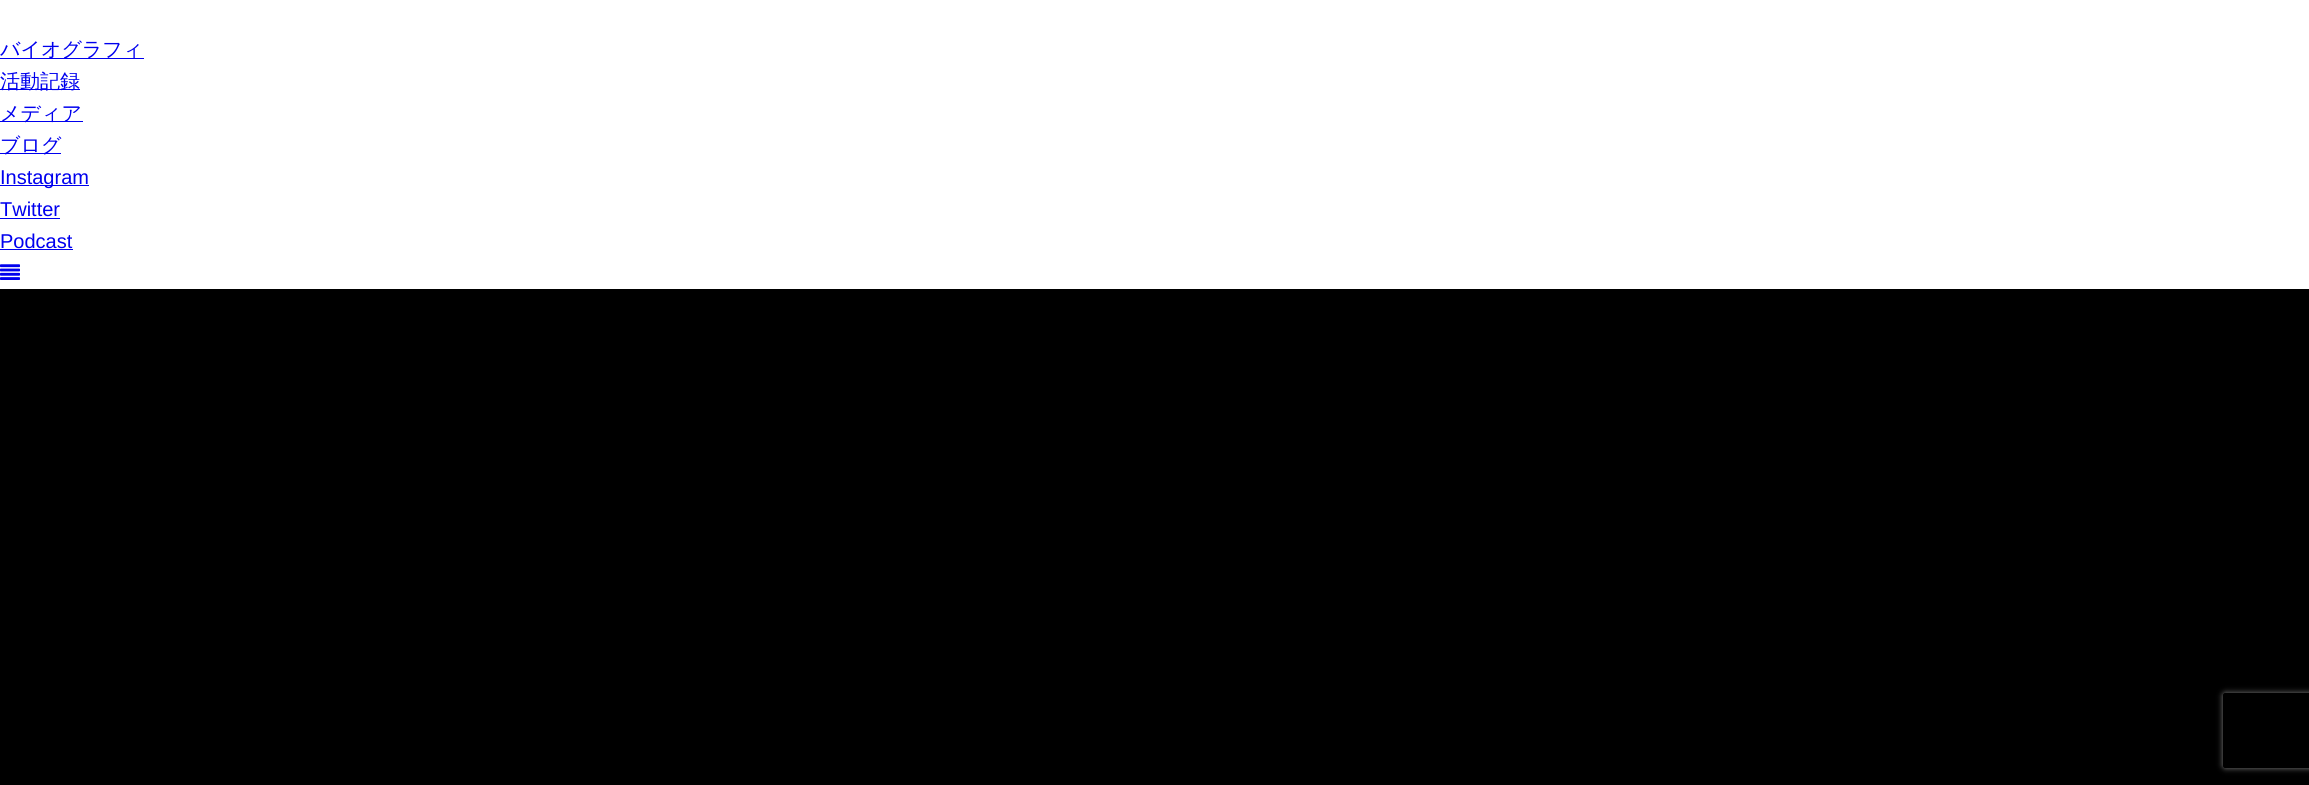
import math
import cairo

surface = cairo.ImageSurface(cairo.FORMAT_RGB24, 2309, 785)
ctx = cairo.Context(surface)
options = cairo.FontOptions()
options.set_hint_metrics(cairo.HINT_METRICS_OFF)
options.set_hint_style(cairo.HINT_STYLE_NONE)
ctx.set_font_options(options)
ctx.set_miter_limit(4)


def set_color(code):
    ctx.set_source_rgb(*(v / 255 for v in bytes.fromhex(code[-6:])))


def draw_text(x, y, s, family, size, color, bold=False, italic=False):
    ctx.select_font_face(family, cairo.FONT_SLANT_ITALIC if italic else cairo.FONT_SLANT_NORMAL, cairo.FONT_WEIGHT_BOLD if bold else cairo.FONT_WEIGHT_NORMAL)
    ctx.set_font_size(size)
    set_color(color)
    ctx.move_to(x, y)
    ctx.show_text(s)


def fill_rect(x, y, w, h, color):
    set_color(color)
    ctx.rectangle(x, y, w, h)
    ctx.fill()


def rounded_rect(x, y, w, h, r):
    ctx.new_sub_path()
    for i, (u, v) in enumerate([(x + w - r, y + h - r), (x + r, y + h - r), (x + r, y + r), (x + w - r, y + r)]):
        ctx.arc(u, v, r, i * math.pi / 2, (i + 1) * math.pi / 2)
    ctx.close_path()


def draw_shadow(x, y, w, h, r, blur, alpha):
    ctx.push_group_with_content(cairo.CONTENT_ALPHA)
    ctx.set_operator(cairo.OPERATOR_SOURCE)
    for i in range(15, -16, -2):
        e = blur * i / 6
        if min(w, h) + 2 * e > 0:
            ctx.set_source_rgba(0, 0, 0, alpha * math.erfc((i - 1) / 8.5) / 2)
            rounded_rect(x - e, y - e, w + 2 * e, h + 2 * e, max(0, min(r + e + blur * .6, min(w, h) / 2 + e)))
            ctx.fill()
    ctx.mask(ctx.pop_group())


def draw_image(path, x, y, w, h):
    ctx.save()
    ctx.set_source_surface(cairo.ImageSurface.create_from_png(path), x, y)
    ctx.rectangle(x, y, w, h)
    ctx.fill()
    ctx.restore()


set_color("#ffffff")
ctx.paint()
fill_rect(0, 58, 144, 1, "#0000ee")
draw_text(0, 56, "バイオグラフィ", "WenQuanYi Zen Hei Medium", 20, "#0000ee")
fill_rect(0, 89, 80, 1, "#0000ee")
draw_text(0, 88, "活動記録", "WenQuanYi Zen Hei Medium", 20, "#0000ee")
fill_rect(0, 121, 83, 1, "#0000ee")
draw_text(0, 120, "メディア", "WenQuanYi Zen Hei Medium", 20, "#0000ee")
fill_rect(0, 153, 61, 1, "#0000ee")
draw_text(0, 152, "ブログ", "WenQuanYi Zen Hei Medium", 20, "#0000ee")
fill_rect(0, 185, 89, 1, "#0000ee")
draw_text(0, 184, "Instagram", "Liberation Sans", 20, "#0000ee")
draw_text(0, 216, "Twitter", "Liberation Sans", 20, "#0000ee")
fill_rect(0, 218, 60, 1, "#0000ee")
draw_text(0, 248, "Podcast", "Liberation Sans", 20, "#0000ee")
fill_rect(0, 249, 73, 1, "#0000ee")
draw_image("assets/img1.png", 0, 264, 20, 16)
fill_rect(0, 289, 2309, 496, "#000000")
ctx.save()
ctx.set_fill_rule(cairo.FILL_RULE_EVEN_ODD)
ctx.new_path()
ctx.move_to(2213, 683)
ctx.line_to(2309, 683)
ctx.line_to(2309, 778)
ctx.line_to(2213, 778)
ctx.close_path()
ctx.move_to(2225.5, 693)
ctx.line_to(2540.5, 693)
ctx.curve_to(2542, 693, 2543, 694, 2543, 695.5)
ctx.line_to(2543, 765.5)
ctx.curve_to(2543, 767, 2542, 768, 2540.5, 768)
ctx.line_to(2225.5, 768)
ctx.curve_to(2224, 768, 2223, 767, 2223, 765.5)
ctx.line_to(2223, 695.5)
ctx.curve_to(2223, 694, 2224, 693, 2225.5, 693)
ctx.close_path()
ctx.clip()
set_color("#808080")
draw_shadow(2223, 693, 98, 75, 2.5, 3, 1)
ctx.restore()
surface.write_to_png("output.png")
